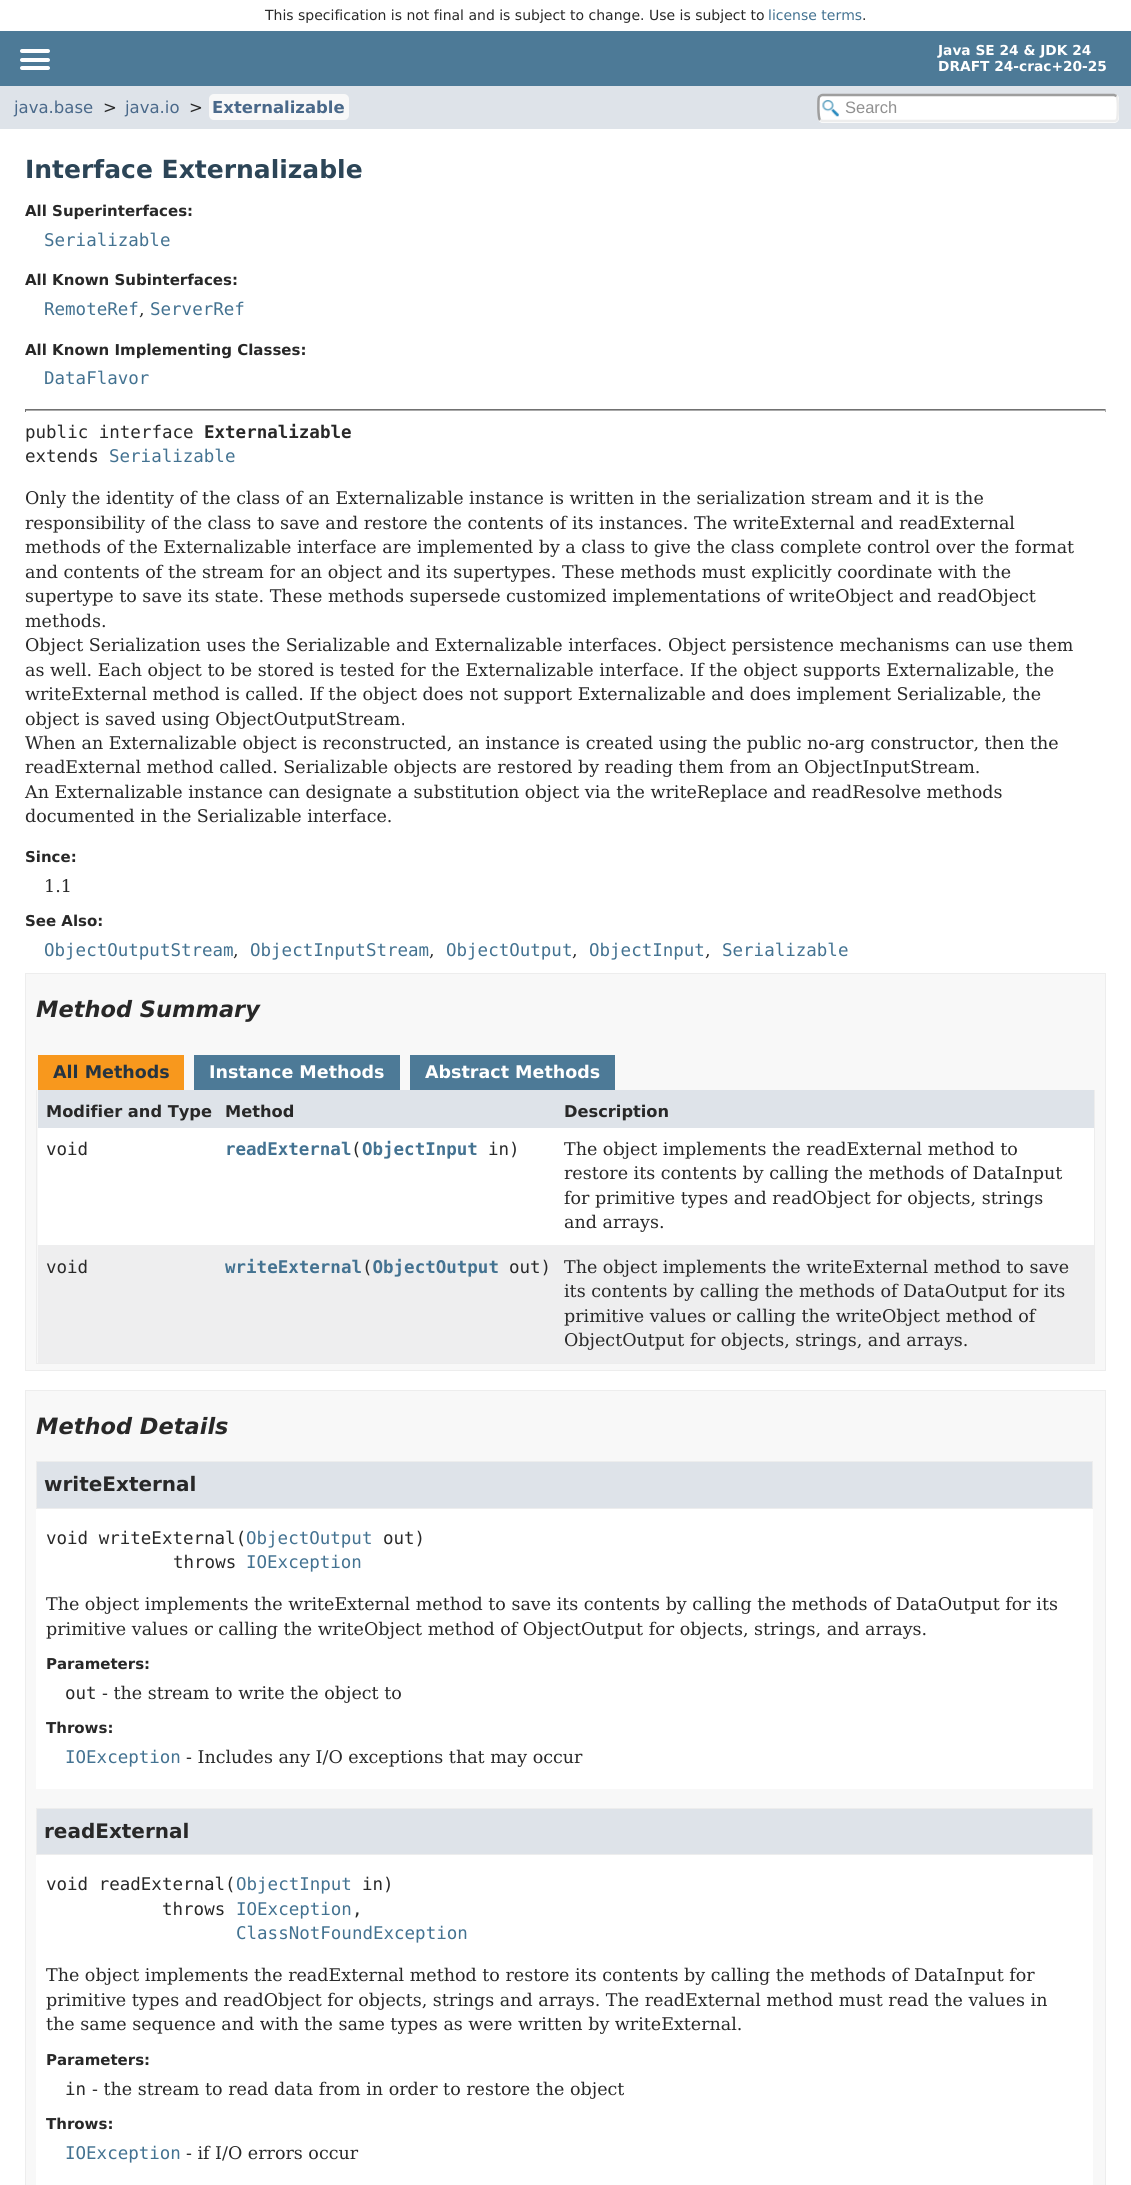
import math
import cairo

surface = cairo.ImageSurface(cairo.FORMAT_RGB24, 1131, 2185)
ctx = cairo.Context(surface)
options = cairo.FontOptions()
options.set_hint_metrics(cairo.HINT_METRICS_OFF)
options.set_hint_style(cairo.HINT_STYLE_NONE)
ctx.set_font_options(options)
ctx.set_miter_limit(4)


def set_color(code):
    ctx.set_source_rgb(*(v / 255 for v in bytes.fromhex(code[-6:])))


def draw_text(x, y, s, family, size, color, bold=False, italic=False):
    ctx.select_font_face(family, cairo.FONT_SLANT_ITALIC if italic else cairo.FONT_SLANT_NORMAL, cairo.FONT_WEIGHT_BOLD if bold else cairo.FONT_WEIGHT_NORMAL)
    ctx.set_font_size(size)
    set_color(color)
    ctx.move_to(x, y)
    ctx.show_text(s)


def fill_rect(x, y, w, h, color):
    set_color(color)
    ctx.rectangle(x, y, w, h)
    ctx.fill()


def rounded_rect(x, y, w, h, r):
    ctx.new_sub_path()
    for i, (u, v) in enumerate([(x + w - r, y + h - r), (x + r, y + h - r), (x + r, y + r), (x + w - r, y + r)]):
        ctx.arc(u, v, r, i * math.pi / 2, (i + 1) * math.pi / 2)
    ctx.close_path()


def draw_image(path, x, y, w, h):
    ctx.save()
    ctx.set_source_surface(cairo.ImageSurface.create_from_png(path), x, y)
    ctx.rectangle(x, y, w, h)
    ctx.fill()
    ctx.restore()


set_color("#ffffff")
ctx.paint()
draw_text(265, 20, "This specification is not final and is subject to change. Use is subject to", "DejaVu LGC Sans", 14, "#282828")
draw_text(768, 20, "license terms", "DejaVu LGC Sans", 14, "#437291")
draw_text(862, 20, ".", "DejaVu LGC Sans", 14, "#282828")
fill_rect(0, 31, 1131, 55, "#4d7a97")
set_color("#ffffff")
rounded_rect(20, 49, 30, 4, 2)
ctx.fill()
rounded_rect(20, 58, 30, 4, 2)
ctx.fill()
rounded_rect(20, 66, 30, 4, 2)
ctx.fill()
draw_text(938, 55, "Java SE 24 & JDK 24", "DejaVu LGC Sans", 13.75, "#ffffff", bold=True)
draw_text(938, 71, "DRAFT 24-crac+20-25", "DejaVu LGC Sans", 13.75, "#ffffff", bold=True)
fill_rect(0, 86, 1131, 43, "#dee3e9")
draw_text(14, 113, "java.base", "DejaVu LGC Sans", 16.5, "#4a698a")
draw_text(103, 113, ">", "DejaVu LGC Sans", 16.5, "#282828")
draw_text(125, 113, "java.io", "DejaVu LGC Sans", 16.5, "#4a698a")
draw_text(189, 113, ">", "DejaVu LGC Sans", 16.5, "#282828")
set_color("#f8f8f8")
rounded_rect(209, 94, 140, 26, 5)
ctx.fill()
draw_text(212, 113, "Externalizable", "DejaVu LGC Sans", 16.5, "#4a698a", bold=True)
set_color("#ffffff")
rounded_rect(818, 94, 301, 29, 5)
ctx.fill()
draw_image("assets/img1.png", 822, 100, 17, 17)
ctx.new_path()
ctx.move_to(1116.5, 96)
ctx.curve_to(1118.5, 98, 1118, 117.5, 1117, 119.5)
ctx.curve_to(1116.5, 120.5, 1115, 121, 1114, 121)
ctx.line_to(822.5, 121)
ctx.line_to(820, 120)
set_color("#ededed")
ctx.set_line_width(2.5)
ctx.stroke()
ctx.new_path()
ctx.move_to(820, 120)
ctx.curve_to(818, 118, 818, 99, 819, 97)
ctx.curve_to(820, 96, 821, 95, 822.5, 95)
ctx.line_to(1114, 95)
ctx.line_to(1116.5, 96)
set_color("#9e9e9e")
ctx.stroke()
draw_text(845, 113, "Search", "Liberation Sans", 16.5, "#909090")
draw_text(25, 178, "Interface Externalizable", "DejaVu LGC Sans", 25, "#2c4557", bold=True)
draw_text(25, 216, "All Superinterfaces:", "DejaVu LGC Sans", 15, "#282828", bold=True)
draw_text(44, 246, "Serializable", "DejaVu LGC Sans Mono", 17.5, "#437291")
draw_text(25, 285, "All Known Subinterfaces:", "DejaVu LGC Sans", 15, "#282828", bold=True)
draw_text(44, 315, "RemoteRef", "DejaVu LGC Sans Mono", 17.5, "#437291")
draw_text(139, 315, ",", "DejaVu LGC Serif", 17.5, "#282828")
draw_text(150, 315, "ServerRef", "DejaVu LGC Sans Mono", 17.5, "#437291")
draw_text(25, 355, "All Known Implementing Classes:", "DejaVu LGC Sans", 15, "#282828", bold=True)
draw_text(44, 384, "DataFlavor", "DejaVu LGC Sans Mono", 17.5, "#437291")
fill_rect(25, 409, 1081, 1, "#717171")
fill_rect(1105, 409, 1, 3, "#aaaaaa")
fill_rect(25, 410, 1081, 1, "#aaaaaa")
fill_rect(25, 409, 1, 3, "#717171")
draw_text(25, 438, "public interface", "DejaVu LGC Sans Mono", 17.5, "#282828")
draw_text(204, 438, "Externalizable", "DejaVu LGC Sans Mono", 17.5, "#282828", bold=True)
draw_text(25, 462, "extends", "DejaVu LGC Sans Mono", 17.5, "#282828")
draw_text(109, 462, "Serializable", "DejaVu LGC Sans Mono", 17.5, "#437291")
draw_text(25, 504, "Only the identity of the class of an Externalizable instance is written in the serialization stream and it is the", "DejaVu LGC Serif", 17.5, "#282828")
draw_text(25, 529, "responsibility of the class to save and restore the contents of its instances. The writeExternal and readExternal", "DejaVu LGC Serif", 17.5, "#282828")
draw_text(25, 553, "methods of the Externalizable interface are implemented by a class to give the class complete control over the format", "DejaVu LGC Serif", 17.5, "#282828")
draw_text(25, 578, "and contents of the stream for an object and its supertypes. These methods must explicitly coordinate with the", "DejaVu LGC Serif", 17.5, "#282828")
draw_text(25, 602, "supertype to save its state. These methods supersede customized implementations of writeObject and readObject", "DejaVu LGC Serif", 17.5, "#282828")
draw_text(25, 627, "methods.", "DejaVu LGC Serif", 17.5, "#282828")
draw_text(25, 651, "Object Serialization uses the Serializable and Externalizable interfaces. Object persistence mechanisms can use them", "DejaVu LGC Serif", 17.5, "#282828")
draw_text(25, 676, "as well. Each object to be stored is tested for the Externalizable interface. If the object supports Externalizable, the", "DejaVu LGC Serif", 17.5, "#282828")
draw_text(25, 700, "writeExternal method is called. If the object does not support Externalizable and does implement Serializable, the", "DejaVu LGC Serif", 17.5, "#282828")
draw_text(25, 725, "object is saved using ObjectOutputStream.", "DejaVu LGC Serif", 17.5, "#282828")
draw_text(25, 749, "When an Externalizable object is reconstructed, an instance is created using the public no-arg constructor, then the", "DejaVu LGC Serif", 17.5, "#282828")
draw_text(25, 773, "readExternal method called. Serializable objects are restored by reading them from an ObjectInputStream.", "DejaVu LGC Serif", 17.5, "#282828")
draw_text(25, 798, "An Externalizable instance can designate a substitution object via the writeReplace and readResolve methods", "DejaVu LGC Serif", 17.5, "#282828")
draw_text(25, 822, "documented in the Serializable interface.", "DejaVu LGC Serif", 17.5, "#282828")
draw_text(25, 862, "Since:", "DejaVu LGC Sans", 15, "#282828", bold=True)
draw_text(44, 892, "1.1", "DejaVu LGC Serif", 17.5, "#282828")
draw_text(25, 926, "See Also:", "DejaVu LGC Sans", 15, "#282828", bold=True)
draw_text(44, 956, "ObjectOutputStream", "DejaVu LGC Sans Mono", 17.5, "#437291")
draw_text(233, 956, ",", "DejaVu LGC Serif", 17.5, "#282828")
draw_text(250, 956, "ObjectInputStream", "DejaVu LGC Sans Mono", 17.5, "#437291")
draw_text(429, 956, ",", "DejaVu LGC Serif", 17.5, "#282828")
draw_text(446, 956, "ObjectOutput", "DejaVu LGC Sans Mono", 17.5, "#437291")
draw_text(572, 956, ",", "DejaVu LGC Serif", 17.5, "#282828")
draw_text(589, 956, "ObjectInput", "DejaVu LGC Sans Mono", 17.5, "#437291")
draw_text(705, 956, ",", "DejaVu LGC Serif", 17.5, "#282828")
draw_text(722, 956, "Serializable", "DejaVu LGC Sans Mono", 17.5, "#437291")
set_color("#f8f8f8")
ctx.rectangle(25.5, 973.5, 1080, 397)
ctx.fill_preserve()
set_color("#ededed")
ctx.set_line_width(1)
ctx.stroke()
draw_text(36, 1017, "Method Summary", "DejaVu LGC Sans", 22.5, "#282828", bold=True, italic=True)
fill_rect(38, 1055, 146, 35, "#f8981d")
draw_text(53, 1078, "All Methods", "DejaVu LGC Sans", 17.5, "#253441", bold=True)
fill_rect(194, 1055, 206, 35, "#4d7a97")
draw_text(209, 1078, "Instance Methods", "DejaVu LGC Sans", 17.5, "#ffffff", bold=True)
fill_rect(410, 1055, 205, 35, "#4d7a97")
draw_text(425, 1078, "Abstract Methods", "DejaVu LGC Sans", 17.5, "#ffffff", bold=True)
fill_rect(1094, 1090, 1, 274, "#ededed")
fill_rect(36, 1363, 1059, 1, "#ededed")
fill_rect(36, 1090, 1, 274, "#ededed")
fill_rect(38, 1090, 1056, 38, "#dee3e9")
draw_text(46, 1117, "Modifier and Type", "DejaVu LGC Sans", 16.25, "#282828", bold=True)
draw_text(225, 1117, "Method", "DejaVu LGC Sans", 16.25, "#282828", bold=True)
draw_text(564, 1117, "Description", "DejaVu LGC Sans", 16.25, "#282828", bold=True)
fill_rect(38, 1128, 1056, 117, "#ffffff")
draw_text(46, 1155, "void", "DejaVu LGC Sans Mono", 17.5, "#282828")
draw_text(225, 1155, "readExternal ObjectInput", "DejaVu LGC Sans Mono", 17.5, "#437291", bold=True)
draw_text(351, 1155, "(", "DejaVu LGC Sans Mono", 17.5, "#282828")
draw_text(488, 1155, "in)", "DejaVu LGC Sans Mono", 17.5, "#282828")
draw_text(564, 1155, "The object implements the readExternal method to", "DejaVu LGC Serif", 17.5, "#282828")
draw_text(564, 1179, "restore its contents by calling the methods of DataInput", "DejaVu LGC Serif", 17.5, "#282828")
draw_text(564, 1204, "for primitive types and readObject for objects, strings", "DejaVu LGC Serif", 17.5, "#282828")
draw_text(564, 1228, "and arrays.", "DejaVu LGC Serif", 17.5, "#282828")
fill_rect(38, 1245, 1056, 118, "#eeeeef")
draw_text(46, 1273, "void", "DejaVu LGC Sans Mono", 17.5, "#282828")
draw_text(225, 1273, "writeExternal ObjectOutput", "DejaVu LGC Sans Mono", 17.5, "#437291", bold=True)
draw_text(362, 1273, "(", "DejaVu LGC Sans Mono", 17.5, "#282828")
draw_text(509, 1273, "out)", "DejaVu LGC Sans Mono", 17.5, "#282828")
draw_text(564, 1273, "The object implements the writeExternal method to save", "DejaVu LGC Serif", 17.5, "#282828")
draw_text(564, 1297, "its contents by calling the methods of DataOutput for its", "DejaVu LGC Serif", 17.5, "#282828")
draw_text(564, 1322, "primitive values or calling the writeObject method of", "DejaVu LGC Serif", 17.5, "#282828")
draw_text(564, 1346, "ObjectOutput for objects, strings, and arrays.", "DejaVu LGC Serif", 17.5, "#282828")
set_color("#f8f8f8")
ctx.rectangle(25.5, 1390.5, 1080, 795)
ctx.fill_preserve()
set_color("#ededed")
ctx.stroke()
draw_text(36, 1434, "Method Details", "DejaVu LGC Sans", 22.5, "#282828", bold=True, italic=True)
fill_rect(36, 1509, 1057, 280, "#ffffff")
set_color("#dee3e9")
ctx.rectangle(36.5, 1461.5, 1056, 47)
ctx.fill_preserve()
set_color("#ededed")
ctx.stroke()
draw_text(44, 1491, "writeExternal", "DejaVu LGC Sans", 20, "#282828", bold=True)
draw_text(46, 1544, "void writeExternal(", "DejaVu LGC Sans Mono", 17.5, "#282828")
draw_text(246, 1544, "ObjectOutput", "DejaVu LGC Sans Mono", 17.5, "#437291")
draw_text(383, 1544, "out)", "DejaVu LGC Sans Mono", 17.5, "#282828")
draw_text(173, 1568, "throws", "DejaVu LGC Sans Mono", 17.5, "#282828")
draw_text(246, 1568, "IOException", "DejaVu LGC Sans Mono", 17.5, "#437291")
draw_text(46, 1610, "The object implements the writeExternal method to save its contents by calling the methods of DataOutput for its", "DejaVu LGC Serif", 17.5, "#282828")
draw_text(46, 1635, "primitive values or calling the writeObject method of ObjectOutput for objects, strings, and arrays.", "DejaVu LGC Serif", 17.5, "#282828")
draw_text(46, 1669, "Parameters:", "DejaVu LGC Sans", 15, "#282828", bold=True)
draw_text(65, 1699, "out", "DejaVu LGC Sans Mono", 17.5, "#282828")
draw_text(102, 1699, "- the stream to write the object to", "DejaVu LGC Serif", 17.5, "#282828")
draw_text(46, 1733, "Throws:", "DejaVu LGC Sans", 15, "#282828", bold=True)
draw_text(65, 1763, "IOException", "DejaVu LGC Sans Mono", 17.5, "#437291")
draw_text(186, 1763, "- Includes any I/O exceptions that may occur", "DejaVu LGC Serif", 17.5, "#282828")
fill_rect(36, 1855, 1057, 330, "#ffffff")
set_color("#dee3e9")
ctx.rectangle(36.5, 1808.5, 1056, 46)
ctx.fill_preserve()
set_color("#ededed")
ctx.stroke()
draw_text(44, 1838, "readExternal", "DejaVu LGC Sans", 20, "#282828", bold=True)
draw_text(46, 1890, "void readExternal(", "DejaVu LGC Sans Mono", 17.5, "#282828")
draw_text(236, 1890, "ObjectInput", "DejaVu LGC Sans Mono", 17.5, "#437291")
draw_text(362, 1890, "in)", "DejaVu LGC Sans Mono", 17.5, "#282828")
draw_text(162, 1915, "throws", "DejaVu LGC Sans Mono", 17.5, "#282828")
draw_text(236, 1915, "IOException", "DejaVu LGC Sans Mono", 17.5, "#437291")
draw_text(352, 1915, ",", "DejaVu LGC Sans Mono", 17.5, "#282828")
draw_text(236, 1939, "ClassNotFoundException", "DejaVu LGC Sans Mono", 17.5, "#437291")
draw_text(46, 1981, "The object implements the readExternal method to restore its contents by calling the methods of DataInput for", "DejaVu LGC Serif", 17.5, "#282828")
draw_text(46, 2006, "primitive types and readObject for objects, strings and arrays. The readExternal method must read the values in", "DejaVu LGC Serif", 17.5, "#282828")
draw_text(46, 2030, "the same sequence and with the same types as were written by writeExternal.", "DejaVu LGC Serif", 17.5, "#282828")
draw_text(46, 2065, "Parameters:", "DejaVu LGC Sans", 15, "#282828", bold=True)
draw_text(65, 2095, "in", "DejaVu LGC Sans Mono", 17.5, "#282828")
draw_text(92, 2095, "- the stream to read data from in order to restore the object", "DejaVu LGC Serif", 17.5, "#282828")
draw_text(46, 2129, "Throws:", "DejaVu LGC Sans", 15, "#282828", bold=True)
draw_text(65, 2159, "IOException", "DejaVu LGC Sans Mono", 17.5, "#437291")
draw_text(186, 2159, "- if I/O errors occur", "DejaVu LGC Serif", 17.5, "#282828")
surface.write_to_png("output.png")
